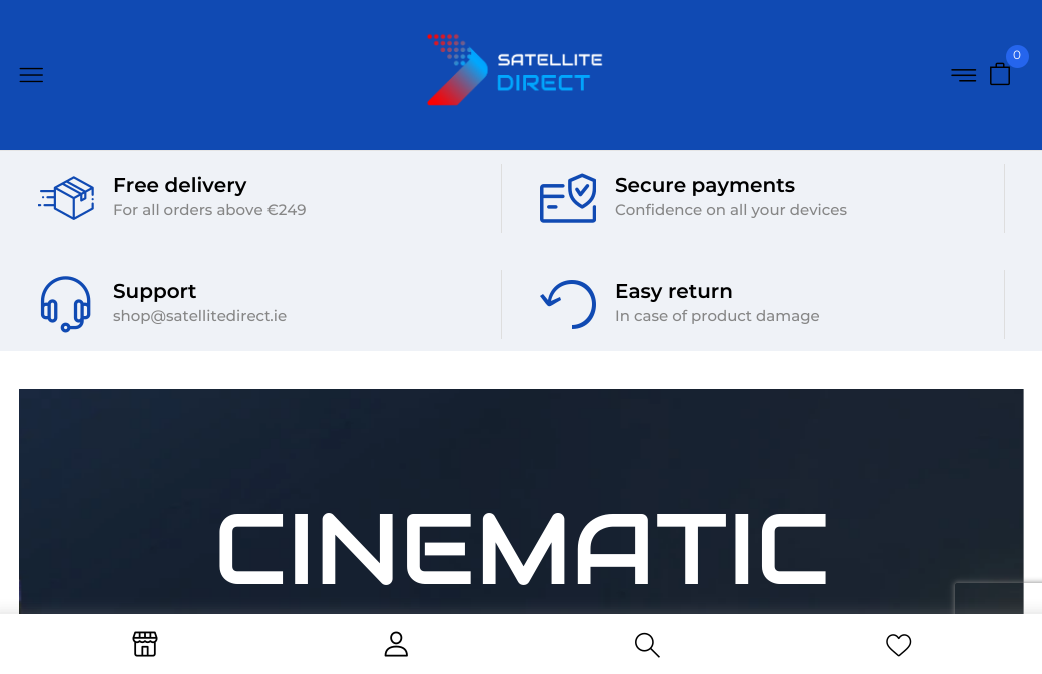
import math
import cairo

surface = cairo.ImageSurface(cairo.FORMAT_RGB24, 1042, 674)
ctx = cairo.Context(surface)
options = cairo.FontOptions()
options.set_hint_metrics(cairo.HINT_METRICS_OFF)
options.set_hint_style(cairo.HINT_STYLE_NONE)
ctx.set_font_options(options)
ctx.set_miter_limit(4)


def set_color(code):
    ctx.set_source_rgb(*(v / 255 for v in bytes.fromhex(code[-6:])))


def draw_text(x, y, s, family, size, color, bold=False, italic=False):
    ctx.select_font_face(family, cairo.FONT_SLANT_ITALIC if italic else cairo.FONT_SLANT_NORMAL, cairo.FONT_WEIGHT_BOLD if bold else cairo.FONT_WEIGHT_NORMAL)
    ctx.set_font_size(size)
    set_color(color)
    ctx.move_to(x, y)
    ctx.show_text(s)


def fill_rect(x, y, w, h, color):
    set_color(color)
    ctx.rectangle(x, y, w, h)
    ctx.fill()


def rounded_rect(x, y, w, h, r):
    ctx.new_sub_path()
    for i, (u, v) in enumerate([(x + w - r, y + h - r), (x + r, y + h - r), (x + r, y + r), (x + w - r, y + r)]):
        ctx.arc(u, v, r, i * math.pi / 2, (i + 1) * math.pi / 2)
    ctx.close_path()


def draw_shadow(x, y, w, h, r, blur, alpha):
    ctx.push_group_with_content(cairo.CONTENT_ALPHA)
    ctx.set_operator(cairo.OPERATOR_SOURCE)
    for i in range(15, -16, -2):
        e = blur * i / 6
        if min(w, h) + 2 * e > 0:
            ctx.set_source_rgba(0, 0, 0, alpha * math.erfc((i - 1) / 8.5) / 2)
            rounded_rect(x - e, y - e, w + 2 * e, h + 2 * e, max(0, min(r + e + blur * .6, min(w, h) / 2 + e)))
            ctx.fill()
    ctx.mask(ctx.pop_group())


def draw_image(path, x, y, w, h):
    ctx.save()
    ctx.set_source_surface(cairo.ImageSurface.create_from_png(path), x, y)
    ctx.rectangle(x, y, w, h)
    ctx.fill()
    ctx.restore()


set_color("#ffffff")
ctx.paint()
fill_rect(0, 0, 1042, 150, "#104ab3")
fill_rect(0, 150, 1042, 1, "#e5e5e5")
draw_image("assets/img1.png", 426, 33, 177, 73)
draw_image("assets/img2.png", 990, 62, 20, 24)
set_color("#2565ed")
ctx.arc(1017.5, 56.5, 11.5, 0, 2 * math.pi)
ctx.fill()
draw_text(1013, 59, "0", "Montserrat", 12, "#ffffff")
draw_image("assets/img3.png", 951, 69, 26, 13)
draw_image("assets/img4.png", 19, 67, 24, 16)
draw_image("assets/img12.png", 19, 389, 1005, 225)
set_color("#909090")
draw_shadow(-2, 613, 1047, 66, 0, 7.5, 0.3)
ctx.save()
ctx.set_fill_rule(cairo.FILL_RULE_EVEN_ODD)
ctx.new_path()
ctx.move_to(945, 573)
ctx.line_to(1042, 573)
ctx.line_to(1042, 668)
ctx.line_to(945, 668)
ctx.close_path()
ctx.move_to(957.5, 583)
ctx.line_to(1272.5, 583)
ctx.curve_to(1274, 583, 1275, 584, 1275, 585.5)
ctx.line_to(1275, 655.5)
ctx.curve_to(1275, 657, 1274, 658, 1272.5, 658)
ctx.line_to(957.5, 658)
ctx.curve_to(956, 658, 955, 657, 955, 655.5)
ctx.line_to(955, 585.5)
ctx.curve_to(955, 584, 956, 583, 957.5, 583)
ctx.close_path()
ctx.clip()
set_color("#808080")
draw_shadow(955, 583, 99, 75, 2.5, 3, 1)
ctx.restore()
fill_rect(0, 614, 1042, 60, "#ffffff")
draw_image("assets/img5.png", 132, 631, 26, 26)
draw_image("assets/img6.png", 384, 631, 24, 26)
draw_image("assets/img7.png", 635, 632, 25, 26)
draw_image("assets/img8.png", 886, 634, 26, 23)
fill_rect(0, 151, 1042, 200, "#eff2f7")
fill_rect(501, 164, 1, 69, "#dedede")
draw_image("assets/img9.png", 38, 176, 56, 44)
draw_text(113, 192, "Free delivery", "Montserrat SemiBold", 20, "#000000")
draw_text(113, 215, "For all orders above €249", "Montserrat Medium", 15, "#868686")
fill_rect(1004, 164, 1, 69, "#dedede")
draw_image("assets/img10.png", 540, 173, 56, 50)
draw_text(615, 192, "Secure payments", "Montserrat SemiBold", 20, "#000000")
draw_text(615, 215, "Confidence on all your devices", "Montserrat Medium", 15, "#868686")
fill_rect(501, 270, 1, 69, "#dedede")
draw_image("assets/img11.png", 40, 276, 51, 57)
draw_text(113, 298, "Support", "Montserrat SemiBold", 20, "#000000")
draw_text(113, 321, "shop@satellitedirect.ie", "Montserrat Medium", 15, "#868686")
fill_rect(1004, 270, 1, 69, "#dedede")
set_color("#104ab3")
ctx.new_path()
ctx.move_to(572, 280)
ctx.curve_to(560, 280, 550, 288, 548, 300)
ctx.line_to(543, 294)
ctx.line_to(540, 296)
ctx.curve_to(551, 310, 546, 308, 561, 300)
ctx.line_to(560, 297)
ctx.line_to(551, 301)
ctx.curve_to(553, 291, 561, 284, 572, 284)
ctx.curve_to(583, 284, 592, 293, 592, 304)
ctx.curve_to(592, 316, 583, 325, 572, 325)
ctx.line_to(572, 329)
ctx.curve_to(604, 329, 604, 280, 572, 280)
ctx.close_path()
ctx.fill()
draw_text(615, 298, "Easy return", "Montserrat SemiBold", 20, "#000000")
draw_text(615, 321, "In case of product damage", "Montserrat Medium", 15, "#868686")
draw_text(213, 584, "CINEMATIC", "Audiowide", 100, "#ffffff")
surface.write_to_png("output.png")
